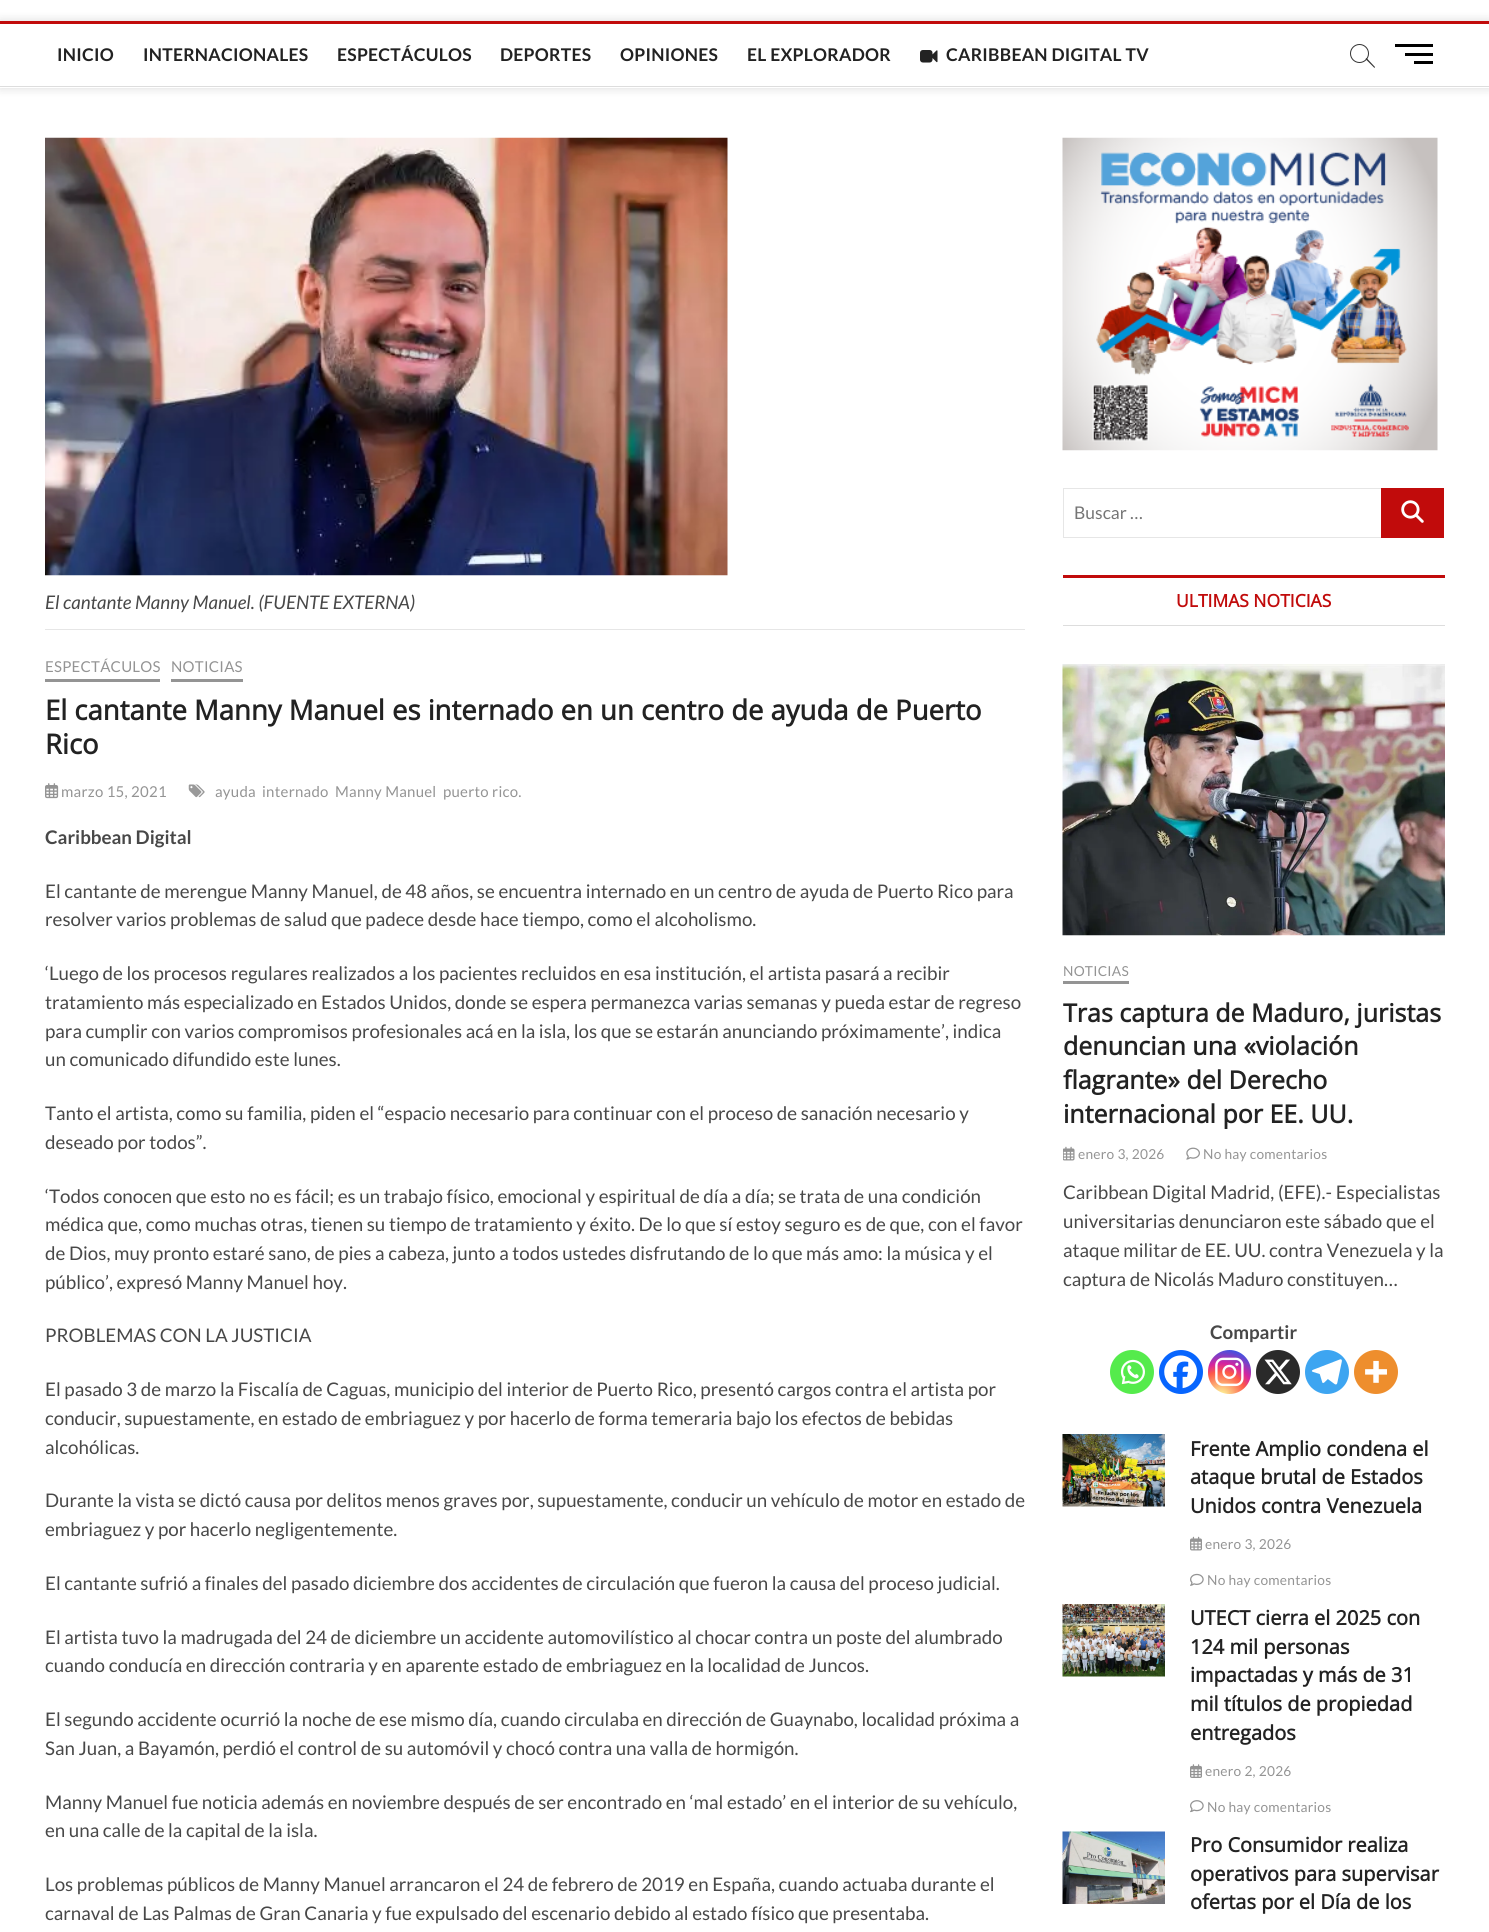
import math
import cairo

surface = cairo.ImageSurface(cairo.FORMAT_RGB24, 1489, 1932)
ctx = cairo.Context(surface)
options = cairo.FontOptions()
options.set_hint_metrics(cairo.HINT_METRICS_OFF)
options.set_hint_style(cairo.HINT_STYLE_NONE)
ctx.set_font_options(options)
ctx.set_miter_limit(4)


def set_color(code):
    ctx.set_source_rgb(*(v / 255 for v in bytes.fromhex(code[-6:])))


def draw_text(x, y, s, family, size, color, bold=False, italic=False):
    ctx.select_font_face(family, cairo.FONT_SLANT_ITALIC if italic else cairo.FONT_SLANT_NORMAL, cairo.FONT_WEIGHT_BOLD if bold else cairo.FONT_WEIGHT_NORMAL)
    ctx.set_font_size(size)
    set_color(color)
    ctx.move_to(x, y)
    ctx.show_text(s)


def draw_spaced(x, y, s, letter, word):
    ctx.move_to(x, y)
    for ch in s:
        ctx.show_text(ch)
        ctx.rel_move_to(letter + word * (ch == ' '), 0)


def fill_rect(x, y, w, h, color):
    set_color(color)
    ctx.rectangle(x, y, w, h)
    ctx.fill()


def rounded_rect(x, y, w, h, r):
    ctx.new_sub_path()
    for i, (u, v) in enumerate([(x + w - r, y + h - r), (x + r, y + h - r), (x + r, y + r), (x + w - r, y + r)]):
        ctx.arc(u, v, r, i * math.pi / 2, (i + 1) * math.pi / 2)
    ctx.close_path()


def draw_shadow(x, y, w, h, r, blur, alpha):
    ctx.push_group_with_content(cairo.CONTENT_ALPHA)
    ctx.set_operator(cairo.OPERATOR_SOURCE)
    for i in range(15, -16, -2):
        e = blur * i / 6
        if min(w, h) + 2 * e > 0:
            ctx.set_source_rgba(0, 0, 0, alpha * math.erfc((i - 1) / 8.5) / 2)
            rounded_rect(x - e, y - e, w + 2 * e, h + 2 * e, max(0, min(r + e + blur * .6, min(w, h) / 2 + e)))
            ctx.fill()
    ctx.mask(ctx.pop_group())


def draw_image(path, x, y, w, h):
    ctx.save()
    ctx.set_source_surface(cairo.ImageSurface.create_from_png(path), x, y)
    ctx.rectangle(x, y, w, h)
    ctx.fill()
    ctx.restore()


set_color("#ffffff")
ctx.paint()
ctx.save()
ctx.set_fill_rule(cairo.FILL_RULE_EVEN_ODD)
ctx.new_path()
ctx.move_to(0, 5)
ctx.line_to(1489, 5)
ctx.line_to(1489, 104)
ctx.line_to(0, 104)
ctx.close_path()
ctx.move_to(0, 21)
ctx.line_to(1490, 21)
ctx.line_to(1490, 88)
ctx.line_to(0, 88)
ctx.close_path()
ctx.clip()
set_color("#000000")
draw_shadow(0, 21, 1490, 67, 0, 5, 0.15)
ctx.restore()
fill_rect(0, 21, 1489, 3, "#c10b0b")
fill_rect(0, 86, 1489, 1, "#dddddd")
ctx.select_font_face("Lato", cairo.FONT_SLANT_NORMAL, cairo.FONT_WEIGHT_BOLD)
ctx.set_font_size(17.5)
set_color("#222222")
draw_spaced(57, 61, "INICIO", 0.25, 0)
draw_spaced(143, 61, "INTERNACIONALES", 0.25, 0)
draw_spaced(337, 61, "ESPECTÁCULOS", 0.25, 0)
draw_spaced(500, 61, "DEPORTES", 0.25, 0)
draw_spaced(620, 61, "OPINIONES", 0.25, 0)
draw_spaced(747, 61, "EL EXPLORADOR", 0.25, 0)
draw_image("assets/img1.png", 920, 50, 18, 13)
draw_spaced(946, 61, "CARIBBEAN DIGITAL TV", 0.25, 0)
ctx.new_path()
ctx.arc(1359.5, 53.5, 9, 0, 2 * math.pi)
set_color("#333333")
ctx.set_line_width(1)
ctx.stroke()
ctx.new_path()
ctx.move_to(1365.5, 59)
ctx.line_to(1366.5, 58)
ctx.line_to(1375, 67)
ctx.line_to(1374.5, 68)
ctx.close_path()
ctx.fill()
fill_rect(1405, 53, 28, 3, "#000000")
fill_rect(1395, 44, 38, 3, "#000000")
fill_rect(1414, 61, 19, 3, "#000000")
draw_image("assets/img2.png", 45, 137, 683, 439)
fill_rect(45, 629, 980, 1, "#e6e6e6")
draw_text(45, 609, "El cantante Manny Manuel. (FUENTE EXTERNA)", "Lato", 18.75, "#484848", italic=True)
ctx.select_font_face("Lato")
ctx.set_font_size(15)
set_color("#949494")
draw_spaced(45, 672, "ESPECTÁCULOS", 0.25, 0)
fill_rect(45, 679, 115, 3, "#949494")
draw_spaced(171, 672, "NOTICIAS", 0.25, 0)
fill_rect(171, 679, 72, 3, "#949494")
draw_text(45, 720, "El cantante Manny Manuel es internado en un centro de ayuda de Puerto", "Open Sans", 27.5, "#222222", bold=True)
draw_text(45, 754, "Rico", "Open Sans", 27.5, "#222222", bold=True)
draw_image("assets/img3.png", 45, 783, 14, 16)
ctx.select_font_face("Lato")
ctx.set_font_size(15)
set_color("#949494")
draw_spaced(61, 797, "marzo 15, 2021", 0.25, 0)
draw_image("assets/img4.png", 188, 784, 17, 14)
draw_spaced(215, 797, "ayuda", 0.25, 0)
draw_spaced(262, 797, "internado", 0.25, 0)
draw_spaced(335, 797, "Manny Manuel", 0.25, 0)
draw_spaced(443, 797, "puerto rico.", 0.25, 0)
draw_text(45, 844, "Caribbean Digital", "Lato", 18.75, "#484848", bold=True)
draw_text(45, 898, "El cantante de merengue Manny Manuel, de 48 años, se encuentra internado en un centro de ayuda de Puerto Rico para", "Lato", 18.75, "#484848")
draw_text(45, 926, "resolver varios problemas de salud que padece desde hace tiempo, como el alcoholismo.", "Lato", 18.75, "#484848")
draw_text(45, 980, "‘Luego de los procesos regulares realizados a los pacientes recluidos en esa institución, el artista pasará a recibir", "Lato", 18.75, "#484848")
draw_text(45, 1009, "tratamiento más especializado en Estados Unidos, donde se espera permanezca varias semanas y pueda estar de regreso", "Lato", 18.75, "#484848")
draw_text(45, 1038, "para cumplir con varios compromisos profesionales acá en la isla, los que se estarán anunciando próximamente’, indica", "Lato", 18.75, "#484848")
draw_text(45, 1066, "un comunicado difundido este lunes.", "Lato", 18.75, "#484848")
draw_text(45, 1120, "Tanto el artista, como su familia, piden el “espacio necesario para continuar con el proceso de sanación necesario y", "Lato", 18.75, "#484848")
draw_text(45, 1149, "deseado por todos”.", "Lato", 18.75, "#484848")
draw_text(45, 1203, "‘Todos conocen que esto no es fácil; es un trabajo físico, emocional y espiritual de día a día; se trata de una condición", "Lato", 18.75, "#484848")
draw_text(45, 1231, "médica que, como muchas otras, tienen su tiempo de tratamiento y éxito. De lo que sí estoy seguro es de que, con el favor", "Lato", 18.75, "#484848")
draw_text(45, 1260, "de Dios, muy pronto estaré sano, de pies a cabeza, junto a todos ustedes disfrutando de lo que más amo: la música y el", "Lato", 18.75, "#484848")
draw_text(45, 1289, "público’, expresó Manny Manuel hoy.", "Lato", 18.75, "#484848")
draw_text(45, 1342, "PROBLEMAS CON LA JUSTICIA", "Lato", 18.75, "#484848")
draw_text(45, 1396, "El pasado 3 de marzo la Fiscalía de Caguas, municipio del interior de Puerto Rico, presentó cargos contra el artista por", "Lato", 18.75, "#484848")
draw_text(45, 1425, "conducir, supuestamente, en estado de embriaguez y por hacerlo de forma temeraria bajo los efectos de bebidas", "Lato", 18.75, "#484848")
draw_text(45, 1454, "alcohólicas.", "Lato", 18.75, "#484848")
draw_text(45, 1507, "Durante la vista se dictó causa por delitos menos graves por, supuestamente, conducir un vehículo de motor en estado de", "Lato", 18.75, "#484848")
draw_text(45, 1536, "embriaguez y por hacerlo negligentemente.", "Lato", 18.75, "#484848")
draw_text(45, 1590, "El cantante sufrió a finales del pasado diciembre dos accidentes de circulación que fueron la causa del proceso judicial.", "Lato", 18.75, "#484848")
draw_text(45, 1644, "El artista tuvo la madrugada del 24 de diciembre un accidente automovilístico al chocar contra un poste del alumbrado", "Lato", 18.75, "#484848")
draw_text(45, 1672, "cuando conducía en dirección contraria y en aparente estado de embriaguez en la localidad de Juncos.", "Lato", 18.75, "#484848")
draw_text(45, 1726, "El segundo accidente ocurrió la noche de ese mismo día, cuando circulaba en dirección de Guaynabo, localidad próxima a", "Lato", 18.75, "#484848")
draw_text(45, 1755, "San Juan, a Bayamón, perdió el control de su automóvil y chocó contra una valla de hormigón.", "Lato", 18.75, "#484848")
draw_text(45, 1809, "Manny Manuel fue noticia además en noviembre después de ser encontrado en ‘mal estado’ en el interior de su vehículo,", "Lato", 18.75, "#484848")
draw_text(45, 1837, "en una calle de la capital de la isla.", "Lato", 18.75, "#484848")
draw_text(45, 1891, "Los problemas públicos de Manny Manuel arrancaron el 24 de febrero de 2019 en España, cuando actuaba durante el", "Lato", 18.75, "#484848")
draw_text(45, 1920, "carnaval de Las Palmas de Gran Canaria y fue expulsado del escenario debido al estado físico que presentaba.", "Lato", 18.75, "#484848")
draw_image("assets/img5.png", 1062, 137, 376, 314)
ctx.rectangle(1063.5, 488.5, 319, 49)
set_color("#e6e6e6")
ctx.stroke()
draw_text(1074, 519, "Buscar …", "Lato", 17.5, "#757575")
fill_rect(1381, 488, 63, 50, "#c10b0b")
draw_image("assets/img6.png", 1401, 500, 23, 23)
fill_rect(1063, 575, 382, 3, "#c10b0b")
fill_rect(1063, 625, 382, 1, "#dddddd")
draw_text(1176, 607, "ULTIMAS NOTICIAS", "Open Sans", 17.5, "#c10b0b", bold=True)
draw_image("assets/img7.png", 1062, 664, 383, 272)
ctx.select_font_face("Lato")
ctx.set_font_size(13.75)
set_color("#949494")
draw_spaced(1063, 976, "NOTICIAS", 0.25, 0)
fill_rect(1063, 981, 66, 3, "#949494")
draw_text(1063, 1022, "Tras captura de Maduro, juristas", "Open Sans", 25, "#222222", bold=True)
draw_text(1063, 1055, "denuncian una «violación", "Open Sans", 25, "#222222", bold=True)
draw_text(1063, 1089, "flagrante» del Derecho", "Open Sans", 25, "#222222", bold=True)
draw_text(1063, 1123, "internacional por EE. UU.", "Open Sans", 25, "#222222", bold=True)
draw_image("assets/img8.png", 1063, 1146, 12, 15)
ctx.select_font_face("Lato")
ctx.set_font_size(13.75)
set_color("#949494")
draw_spaced(1078, 1159, "enero 3, 2026", 0.25, 0)
draw_image("assets/img9.png", 1186, 1147, 14, 13)
draw_spaced(1203, 1159, "No hay comentarios", 0.25, 0)
draw_text(1063, 1199, "Caribbean Digital Madrid, (EFE).- Especialistas", "Lato", 18.75, "#484848")
draw_text(1063, 1228, "universitarias denunciaron este sábado que el", "Lato", 18.75, "#484848")
draw_text(1063, 1257, "ataque militar de EE. UU. contra Venezuela y la", "Lato", 18.75, "#484848")
draw_text(1063, 1286, "captura de Nicolás Maduro constituyen…", "Lato", 18.75, "#484848")
draw_text(1210, 1339, "Compartir", "Lato", 18.75, "#484848", bold=True)
set_color("#55eb4c")
ctx.new_path()
ctx.arc(1132, 1372, 22, 0, 2 * math.pi)
ctx.fill()
draw_image("assets/img10.png", 1120, 1359, 25, 26)
set_color("#0765fe")
ctx.arc(1181, 1372, 22, 0, 2 * math.pi)
ctx.fill()
draw_image("assets/img11.png", 1164, 1355, 33, 34)
gradient = cairo.RadialGradient(1221, 1397, 0, 1221, 1397, 56)
gradient.add_color_stop_rgba(0, 0.992, 0.957, 0.592, 1)
gradient.add_color_stop_rgba(0.05, 0.992, 0.957, 0.592, 1)
gradient.add_color_stop_rgba(0.45, 0.992, 0.349, 0.286, 1)
gradient.add_color_stop_rgba(0.6, 0.839, 0.141, 0.624, 1)
gradient.add_color_stop_rgba(0.9, 0.157, 0.353, 0.922, 1)
ctx.set_source(gradient)
rounded_rect(1208, 1350, 43, 44, 21.5)
ctx.fill()
draw_image("assets/img12.png", 1215, 1357, 29, 30)
set_color("#2a2a2a")
ctx.arc(1278, 1372, 22, 0, 2 * math.pi)
ctx.fill()
draw_image("assets/img13.png", 1264, 1359, 28, 26)
set_color("#3da5f1")
ctx.arc(1327, 1372, 22, 0, 2 * math.pi)
ctx.fill()
draw_image("assets/img14.png", 1311, 1359, 31, 26)
set_color("#ee8e2d")
ctx.arc(1376, 1372, 22, 0, 2 * math.pi)
ctx.fill()
draw_image("assets/img15.png", 1365, 1360, 22, 23)
draw_image("assets/img16.png", 1062, 1434, 103, 73)
draw_text(1190, 1456, "Frente Amplio condena el", "Open Sans", 20, "#222222", bold=True)
draw_text(1190, 1484, "ataque brutal de Estados", "Open Sans", 20, "#222222", bold=True)
draw_text(1190, 1513, "Unidos contra Venezuela", "Open Sans", 20, "#222222", bold=True)
draw_image("assets/img17.png", 1190, 1536, 12, 15)
ctx.select_font_face("Lato")
ctx.set_font_size(13.75)
set_color("#949494")
draw_spaced(1205, 1549, "enero 3, 2026", 0.25, 0)
draw_image("assets/img18.png", 1190, 1573, 14, 13)
draw_spaced(1207, 1585, "No hay comentarios", 0.25, 0)
draw_image("assets/img19.png", 1062, 1604, 103, 73)
draw_text(1190, 1625, "UTECT cierra el 2025 con", "Open Sans", 20, "#222222", bold=True)
draw_text(1190, 1654, "124 mil personas", "Open Sans", 20, "#222222", bold=True)
draw_text(1190, 1682, "impactadas y más de 31", "Open Sans", 20, "#222222", bold=True)
draw_text(1190, 1711, "mil títulos de propiedad", "Open Sans", 20, "#222222", bold=True)
draw_text(1190, 1740, "entregados", "Open Sans", 20, "#222222", bold=True)
draw_image("assets/img20.png", 1190, 1764, 12, 14)
ctx.select_font_face("Lato")
ctx.set_font_size(13.75)
set_color("#949494")
draw_spaced(1205, 1776, "enero 2, 2026", 0.25, 0)
draw_image("assets/img21.png", 1190, 1800, 14, 13)
draw_spaced(1207, 1812, "No hay comentarios", 0.25, 0)
draw_image("assets/img22.png", 1062, 1831, 103, 73)
draw_text(1190, 1852, "Pro Consumidor realiza", "Open Sans", 20, "#222222", bold=True)
draw_text(1190, 1881, "operativos para supervisar", "Open Sans", 20, "#222222", bold=True)
draw_text(1190, 1909, "ofertas por el Día de los", "Open Sans", 20, "#222222", bold=True)
surface.write_to_png("output.png")
